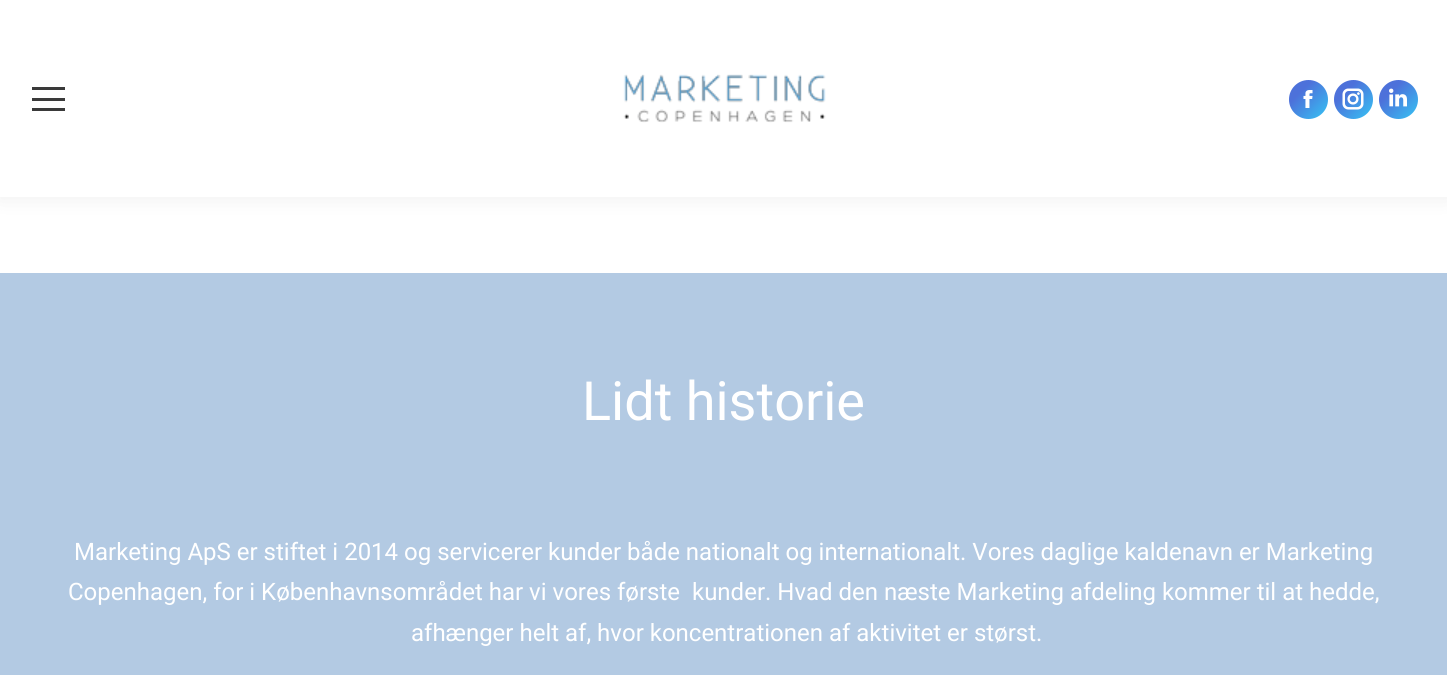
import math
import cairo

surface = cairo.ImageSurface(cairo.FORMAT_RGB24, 1447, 675)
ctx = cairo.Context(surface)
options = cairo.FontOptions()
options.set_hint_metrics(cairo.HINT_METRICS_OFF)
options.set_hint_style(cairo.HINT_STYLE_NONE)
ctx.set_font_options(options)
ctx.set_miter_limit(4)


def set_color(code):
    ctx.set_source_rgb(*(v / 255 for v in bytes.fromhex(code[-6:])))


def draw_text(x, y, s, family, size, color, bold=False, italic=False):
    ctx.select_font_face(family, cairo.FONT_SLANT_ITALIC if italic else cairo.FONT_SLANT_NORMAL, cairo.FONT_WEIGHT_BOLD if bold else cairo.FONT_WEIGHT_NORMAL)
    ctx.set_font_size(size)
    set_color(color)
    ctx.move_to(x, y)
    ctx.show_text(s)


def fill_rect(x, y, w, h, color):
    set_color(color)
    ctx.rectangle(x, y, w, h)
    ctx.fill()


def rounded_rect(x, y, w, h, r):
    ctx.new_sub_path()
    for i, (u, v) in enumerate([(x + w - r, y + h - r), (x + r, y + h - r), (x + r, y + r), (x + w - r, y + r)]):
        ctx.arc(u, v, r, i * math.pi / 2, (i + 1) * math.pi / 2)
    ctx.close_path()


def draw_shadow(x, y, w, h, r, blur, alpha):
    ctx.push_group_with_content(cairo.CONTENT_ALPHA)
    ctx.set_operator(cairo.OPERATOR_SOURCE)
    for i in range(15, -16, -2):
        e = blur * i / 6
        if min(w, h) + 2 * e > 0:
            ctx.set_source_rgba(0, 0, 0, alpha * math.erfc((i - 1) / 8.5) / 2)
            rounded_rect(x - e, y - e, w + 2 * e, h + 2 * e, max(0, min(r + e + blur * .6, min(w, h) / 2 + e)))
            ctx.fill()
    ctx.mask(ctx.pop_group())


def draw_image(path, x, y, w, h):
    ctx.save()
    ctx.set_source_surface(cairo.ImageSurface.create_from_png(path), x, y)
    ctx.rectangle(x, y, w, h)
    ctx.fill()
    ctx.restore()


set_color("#ffffff")
ctx.paint()
set_color("#000000")
draw_shadow(-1, -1, 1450, 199, 0, 11, 0.07)
fill_rect(0, 0, 1447, 197, "#ffffff")
fill_rect(32, 87, 33, 3, "#3a3a3a")
fill_rect(32, 98, 33, 3, "#3a3a3a")
fill_rect(32, 108, 33, 3, "#3a3a3a")
draw_image("assets/img1.png", 623, 74, 203, 49)
gradient = cairo.LinearGradient(1289, 80, 1328, 119)
gradient.add_color_stop_rgba(0.3, 0.302, 0.443, 0.855, 1)
gradient.add_color_stop_rgba(1, 0.208, 0.769, 0.957, 1)
ctx.set_source(gradient)
ctx.arc(1308.5, 99.5, 19.5, 0, 2 * math.pi)
ctx.fill()
draw_image("assets/img2.png", 1303, 90, 10, 18)
gradient = cairo.LinearGradient(1334, 80, 1373, 119)
gradient.add_color_stop_rgba(0.3, 0.302, 0.443, 0.855, 1)
gradient.add_color_stop_rgba(1, 0.208, 0.769, 0.957, 1)
ctx.set_source(gradient)
ctx.arc(1353.5, 99.5, 19.5, 0, 2 * math.pi)
ctx.fill()
draw_image("assets/img3.png", 1342, 88, 22, 22)
gradient = cairo.LinearGradient(1379, 80, 1418, 119)
gradient.add_color_stop_rgba(0.3, 0.302, 0.443, 0.855, 1)
gradient.add_color_stop_rgba(1, 0.208, 0.769, 0.957, 1)
ctx.set_source(gradient)
ctx.arc(1398.5, 99.5, 19.5, 0, 2 * math.pi)
ctx.fill()
draw_image("assets/img4.png", 1389, 88, 18, 19)
fill_rect(0, 273, 1447, 402, "#b3cae3")
draw_text(582, 420, "Lidt historie", "Roboto", 54, "#ffffff")
draw_text(74, 560, "Marketing ApS er stiftet i 2014 og servicerer kunder både nationalt og internationalt. Vores daglige kaldenavn er Marketing", "Roboto", 24, "#ffffff")
draw_text(68, 600, "Copenhagen, for i Københavnsområdet har vi vores første  kunder. Hvad den næste Marketing afdeling kommer til at hedde,", "Roboto", 24, "#ffffff")
draw_text(411, 641, "afhænger helt af, hvor koncentrationen af aktivitet er størst.", "Roboto", 24, "#ffffff")
surface.write_to_png("output.png")
